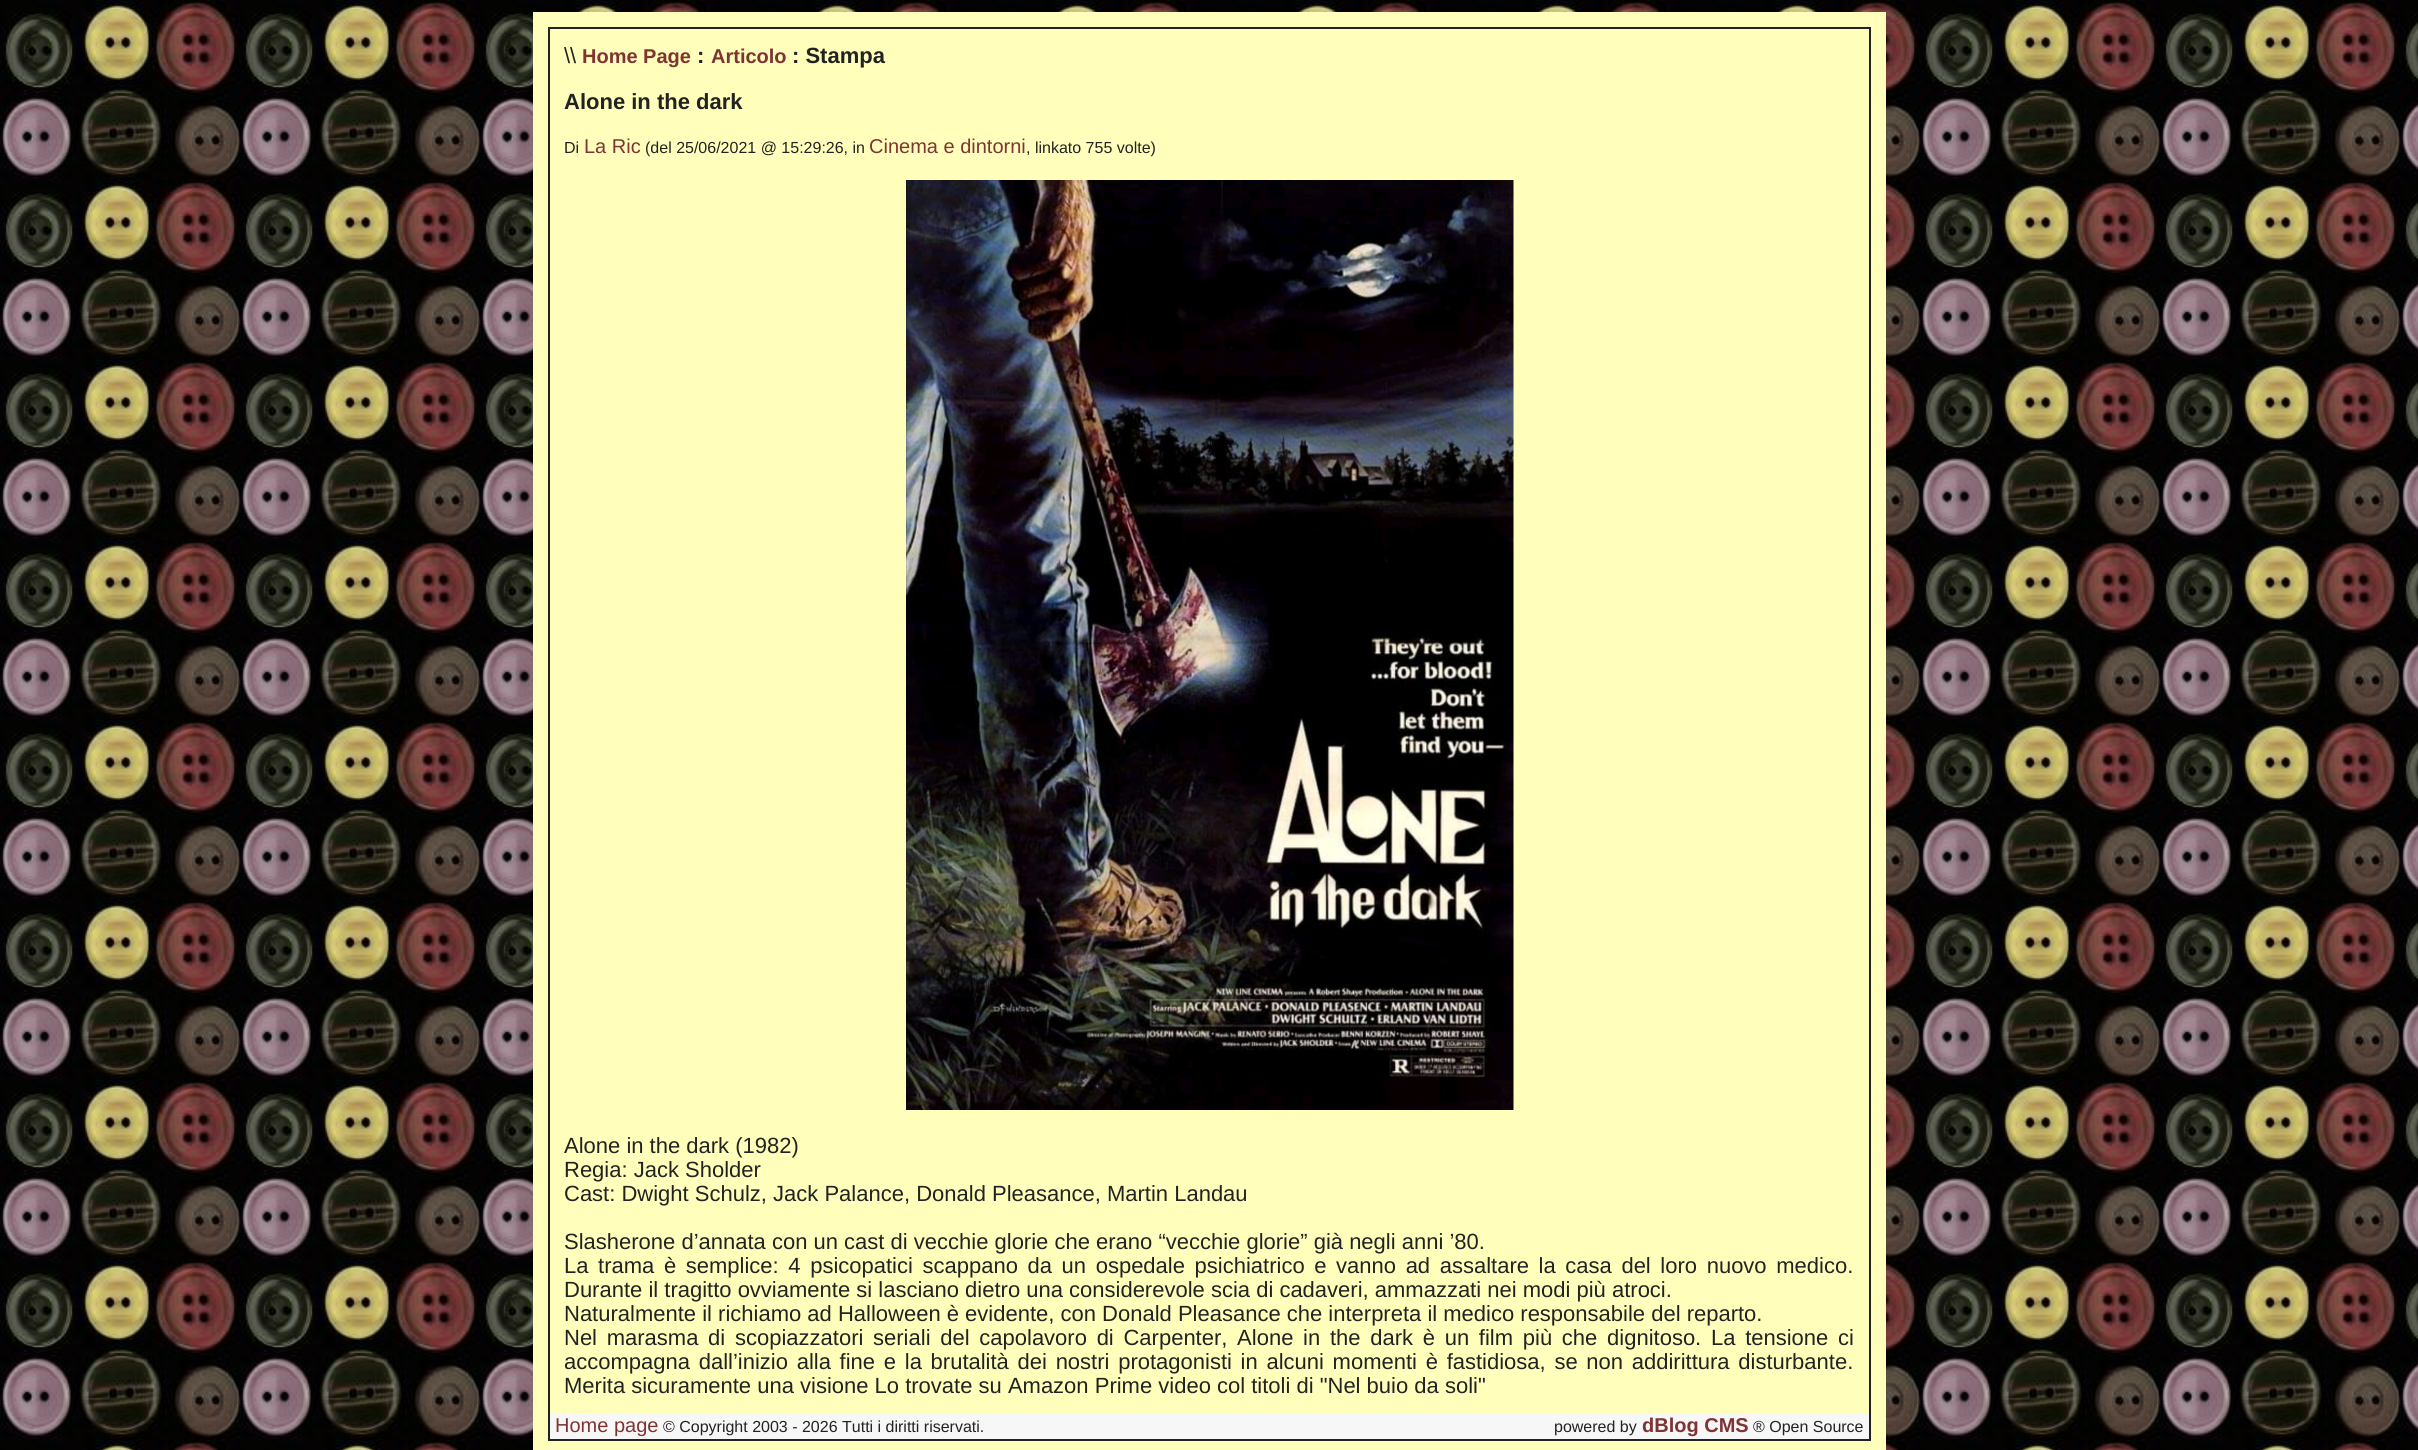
import math
import cairo

surface = cairo.ImageSurface(cairo.FORMAT_RGB24, 2418, 1450)
ctx = cairo.Context(surface)
options = cairo.FontOptions()
options.set_hint_metrics(cairo.HINT_METRICS_OFF)
options.set_hint_style(cairo.HINT_STYLE_NONE)
ctx.set_font_options(options)
ctx.set_miter_limit(4)


def set_color(code):
    ctx.set_source_rgb(*(v / 255 for v in bytes.fromhex(code[-6:])))


def draw_text(x, y, s, family, size, color, bold=False, italic=False):
    ctx.select_font_face(family, cairo.FONT_SLANT_ITALIC if italic else cairo.FONT_SLANT_NORMAL, cairo.FONT_WEIGHT_BOLD if bold else cairo.FONT_WEIGHT_NORMAL)
    ctx.set_font_size(size)
    set_color(color)
    ctx.move_to(x, y)
    ctx.show_text(s)


def draw_spaced(x, y, s, letter, word):
    ctx.move_to(x, y)
    for ch in s:
        ctx.show_text(ch)
        ctx.rel_move_to(letter + word * (ch == ' '), 0)


def fill_rect(x, y, w, h, color):
    set_color(color)
    ctx.rectangle(x, y, w, h)
    ctx.fill()


def draw_image(path, x, y, w, h):
    ctx.save()
    ctx.set_source_surface(cairo.ImageSurface.create_from_png(path), x, y)
    ctx.rectangle(x, y, w, h)
    ctx.fill()
    ctx.restore()


set_color("#ffffff")
ctx.paint()
draw_image("assets/img1.png", 0, 0, 2418, 1450)
fill_rect(533, 12, 1353, 1438, "#ffffbb")
fill_rect(548, 27, 1323, 2, "#222222")
fill_rect(1869, 27, 2, 1413, "#222222")
fill_rect(548, 1439, 1323, 2, "#222222")
fill_rect(548, 27, 2, 1413, "#222222")
draw_text(564, 63, "\\\\", "Liberation Sans", 22, "#222222")
draw_text(582, 63, "Home Page", "Liberation Sans", 20, "#7f3333", bold=True)
draw_text(697, 63, ":", "Liberation Sans", 22, "#222222", bold=True)
draw_text(711, 63, "Articolo", "Liberation Sans", 20, "#7f3333", bold=True)
draw_text(792, 63, ": Stampa", "Liberation Sans", 22, "#222222", bold=True)
draw_text(564, 109, "Alone in the dark", "Liberation Sans", 22, "#222222", bold=True)
draw_text(564, 153, "Di", "Liberation Sans", 16, "#222222")
draw_text(584, 153, "La Ric", "Liberation Sans", 20, "#7f3333")
draw_text(645, 153, "(del 25/06/2021 @ 15:29:26, in", "Liberation Sans", 16, "#222222")
draw_text(869, 153, "Cinema e dintorni", "Liberation Sans", 20, "#7f3333")
draw_text(1026, 153, ", linkato 755 volte)", "Liberation Sans", 16, "#222222")
draw_image("assets/img2.png", 906, 180, 608, 930)
draw_text(564, 1153, "Alone in the dark (1982)", "Liberation Sans", 22, "#222222")
draw_text(564, 1177, "Regia: Jack Sholder", "Liberation Sans", 22, "#222222")
draw_text(564, 1201, "Cast: Dwight Schulz, Jack Palance, Donald Pleasance, Martin Landau", "Liberation Sans", 22, "#222222")
draw_text(564, 1249, "Slasherone d’annata con un cast di vecchie glorie che erano “vecchie glorie” già negli anni ’80.", "Liberation Sans", 22, "#222222")
draw_spaced(564, 1273, "La trama è semplice: 4 psicopatici scappano da un ospedale psichiatrico e vanno ad assaltare la casa del loro nuovo medico.", 0, 3.5)
draw_text(564, 1297, "Durante il tragitto ovviamente si lasciano dietro una considerevole scia di cadaveri, ammazzati nei modi più atroci.", "Liberation Sans", 22, "#222222")
draw_text(564, 1321, "Naturalmente il richiamo ad Halloween è evidente, con Donald Pleasance che interpreta il medico responsabile del reparto.", "Liberation Sans", 22, "#222222")
draw_spaced(564, 1345, "Nel marasma di scopiazzatori seriali del capolavoro di Carpenter, Alone in the dark è un film più che dignitoso. La tensione ci", 0, 3.6)
draw_spaced(564, 1369, "accompagna dall’inizio alla fine e la brutalità dei nostri protagonisti in alcuni momenti è fastidiosa, se non addirittura disturbante.", 0, 2.6)
draw_text(564, 1393, "Merita sicuramente una visione Lo trovate su Amazon Prime video col titoli di \"Nel buio da soli\"", "Liberation Sans", 22, "#222222")
fill_rect(550, 1413, 1319, 26, "#f7f7f7")
draw_text(555, 1432, "Home page", "Liberation Sans", 20, "#7f3333")
draw_text(663, 1432, "© Copyright 2003 - 2026 Tutti i diritti riservati.", "Liberation Sans", 16, "#222222")
draw_text(1554, 1432, "powered by", "Liberation Sans", 16, "#222222")
draw_text(1642, 1432, "dBlog CMS", "Liberation Sans", 20, "#7f3333", bold=True)
draw_text(1753, 1432, "® Open Source", "Liberation Sans", 16, "#222222")
surface.write_to_png("output.png")
